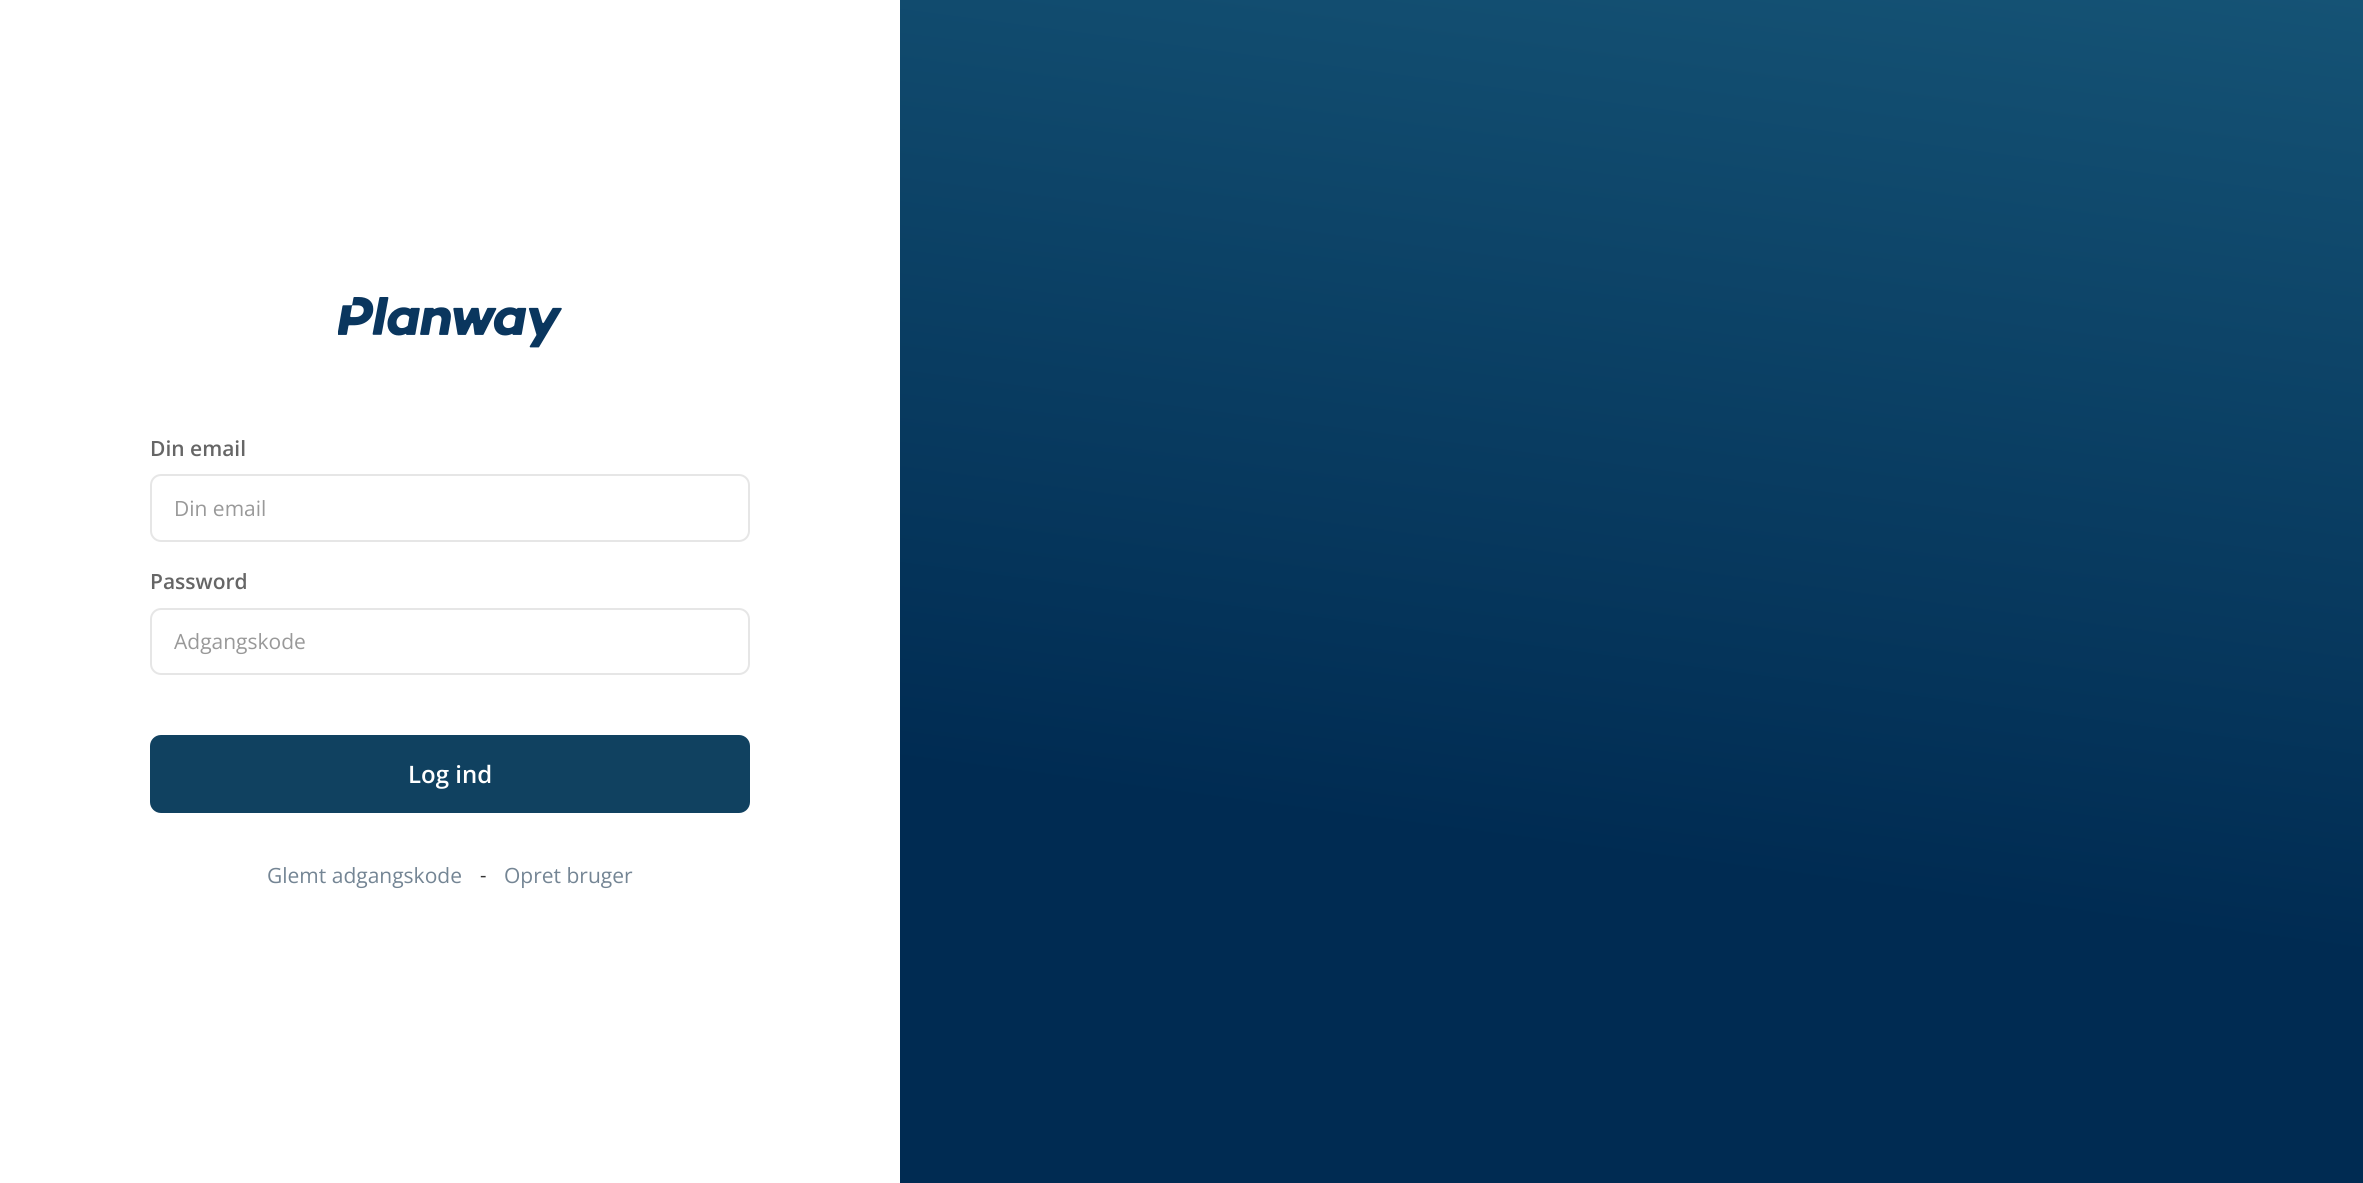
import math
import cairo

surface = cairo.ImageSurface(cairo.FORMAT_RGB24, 2363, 1183)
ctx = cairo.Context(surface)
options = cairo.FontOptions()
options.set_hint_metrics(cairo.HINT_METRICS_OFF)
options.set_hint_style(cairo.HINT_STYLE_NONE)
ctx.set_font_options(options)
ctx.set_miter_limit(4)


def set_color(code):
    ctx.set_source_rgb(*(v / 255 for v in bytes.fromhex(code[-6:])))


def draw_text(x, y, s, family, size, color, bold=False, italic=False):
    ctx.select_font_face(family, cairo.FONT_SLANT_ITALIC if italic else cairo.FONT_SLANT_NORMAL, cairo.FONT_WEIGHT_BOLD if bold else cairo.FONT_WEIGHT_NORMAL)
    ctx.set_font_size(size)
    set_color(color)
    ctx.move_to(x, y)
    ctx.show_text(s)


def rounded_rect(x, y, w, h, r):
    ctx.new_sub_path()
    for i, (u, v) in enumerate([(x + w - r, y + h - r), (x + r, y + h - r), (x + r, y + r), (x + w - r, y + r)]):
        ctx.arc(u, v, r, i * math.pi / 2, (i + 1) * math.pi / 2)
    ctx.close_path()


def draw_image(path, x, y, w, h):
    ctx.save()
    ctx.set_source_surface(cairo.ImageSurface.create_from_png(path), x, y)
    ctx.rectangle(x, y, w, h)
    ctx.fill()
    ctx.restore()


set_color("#ffffff")
ctx.paint()
draw_image("assets/img1.png", 338, 297, 224, 51)
draw_text(150, 456, "Din email", "Open Sans SemiBold", 21, "#666666")
rounded_rect(151, 475, 598, 66, 10)
set_color("#e6e6e6")
ctx.stroke()
draw_text(174, 516, "Din email", "Open Sans", 21, "#999999")
draw_text(150, 589, "Password", "Open Sans SemiBold", 21, "#666666")
rounded_rect(151, 609, 598, 65, 10)
set_color("#e6e6e6")
ctx.stroke()
draw_text(174, 649, "Adgangskode", "Open Sans", 21, "#999999")
set_color("#104160")
rounded_rect(150, 735, 600, 78, 11)
ctx.fill()
draw_text(408, 783, "Log ind", "Open Sans SemiBold", 24, "#ffffff")
draw_text(267, 883, "Glemt adgangskode", "Open Sans", 21, "#748594")
draw_text(480, 882, "-", "Open Sans", 20, "#333333")
draw_text(504, 883, "Opret bruger", "Open Sans", 21, "#748594")
gradient = cairo.LinearGradient(1085, 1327, 1279, -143)
gradient.add_color_stop_rgba(0.36, 0, 0.169, 0.322, 1)
gradient.add_color_stop_rgba(1, 0.082, 0.325, 0.459, 1)
ctx.set_source(gradient)
ctx.rectangle(900, 0, 1463, 1183)
ctx.fill()
surface.write_to_png("output.png")
